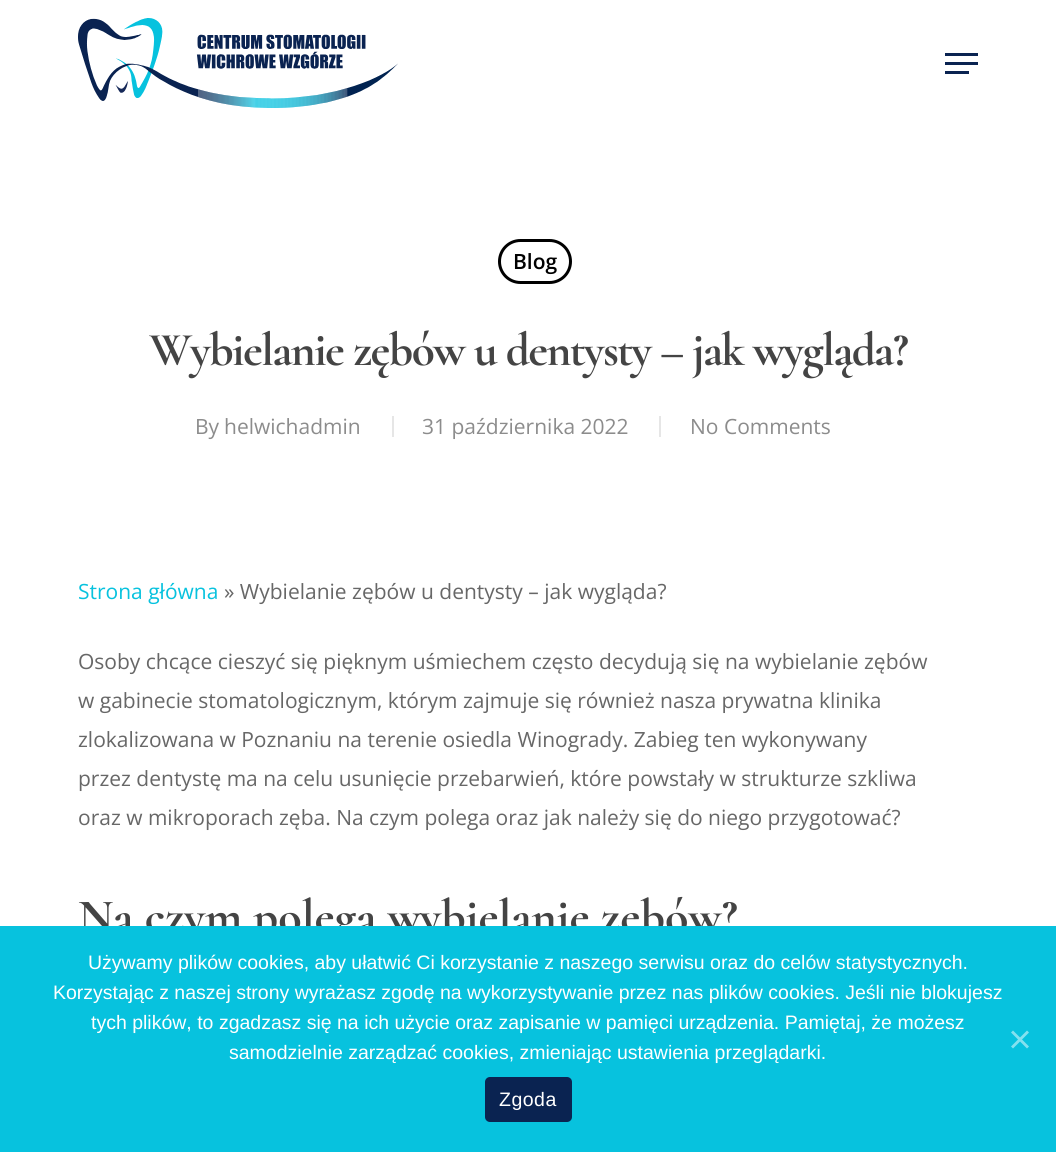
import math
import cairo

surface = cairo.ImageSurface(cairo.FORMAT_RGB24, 1056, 1152)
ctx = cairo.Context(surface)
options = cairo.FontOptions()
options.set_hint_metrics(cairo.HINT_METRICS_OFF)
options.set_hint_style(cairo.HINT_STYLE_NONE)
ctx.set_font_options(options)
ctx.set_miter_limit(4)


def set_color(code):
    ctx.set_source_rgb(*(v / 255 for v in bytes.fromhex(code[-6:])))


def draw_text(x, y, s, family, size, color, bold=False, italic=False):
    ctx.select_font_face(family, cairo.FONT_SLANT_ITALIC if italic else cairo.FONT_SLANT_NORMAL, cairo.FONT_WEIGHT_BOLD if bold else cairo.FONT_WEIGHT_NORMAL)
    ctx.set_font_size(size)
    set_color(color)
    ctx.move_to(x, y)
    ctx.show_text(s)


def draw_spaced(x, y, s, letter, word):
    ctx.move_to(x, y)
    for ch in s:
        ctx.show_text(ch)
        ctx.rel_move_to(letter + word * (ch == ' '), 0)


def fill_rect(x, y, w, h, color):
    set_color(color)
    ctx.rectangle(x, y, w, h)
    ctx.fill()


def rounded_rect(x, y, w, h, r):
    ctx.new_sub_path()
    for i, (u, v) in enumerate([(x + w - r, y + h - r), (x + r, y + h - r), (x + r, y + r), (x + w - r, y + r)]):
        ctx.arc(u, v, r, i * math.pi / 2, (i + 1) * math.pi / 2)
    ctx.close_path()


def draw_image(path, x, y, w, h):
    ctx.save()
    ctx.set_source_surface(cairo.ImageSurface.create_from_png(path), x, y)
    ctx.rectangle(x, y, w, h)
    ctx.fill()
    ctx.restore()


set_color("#ffffff")
ctx.paint()
draw_image("assets/img1.png", 78, 18, 320, 90)
fill_rect(945, 53, 33, 3, "#0a2351")
fill_rect(945, 71, 24, 3, "#0a2351")
fill_rect(945, 62, 33, 3, "#0a2351")
rounded_rect(499.5, 240.5, 71, 42, 21)
set_color("#000000")
ctx.set_line_width(3)
ctx.stroke()
draw_text(513, 269, "Blog", "Open Sans SemiBold", 21, "#000000")
ctx.select_font_face("Cormorant Light")
ctx.set_font_size(47.25)
set_color("#444444")
draw_spaced(149, 365, "Wybielanie zębów u dentysty – jak wygląda?", -1.5, 0)
draw_text(195, 434, "By", "Open Sans", 21, "#8c8c8c")
draw_text(224, 434, "helwichadmin", "Open Sans", 21, "#8c8c8c")
fill_rect(392, 416, 2, 21, "#e6e6e6")
draw_text(422, 434, "31 października 2022", "Open Sans", 21, "#8c8c8c")
fill_rect(659, 416, 2, 21, "#e6e6e6")
draw_text(690, 434, "No Comments", "Open Sans", 21, "#8c8c8c")
draw_text(78, 599, "Strona główna", "Open Sans", 21, "#07c2de")
draw_text(224, 599, "» Wybielanie zębów u dentysty – jak wygląda?", "Open Sans", 21, "#676767")
draw_text(78, 669, "Osoby chcące cieszyć się pięknym uśmiechem często decydują się na wybielanie zębów", "Open Sans", 21, "#676767")
draw_text(78, 708, "w gabinecie stomatologicznym, którym zajmuje się również nasza prywatna klinika", "Open Sans", 21, "#676767")
draw_text(78, 747, "zlokalizowana w Poznaniu na terenie osiedla Winogrady. Zabieg ten wykonywany", "Open Sans", 21, "#676767")
draw_text(78, 786, "przez dentystę ma na celu usunięcie przebarwień, które powstały w strukturze szkliwa", "Open Sans", 21, "#676767")
draw_text(78, 825, "oraz w mikroporach zęba. Na czym polega oraz jak należy się do niego przygotować?", "Open Sans", 21, "#676767")
draw_text(78, 932, "Na czym polega wybielanie zębów?", "Cormorant Light", 48, "#444444")
fill_rect(0, 926, 1056, 226, "#07c2de")
draw_text(88, 969, "Używamy plików cookies, aby ułatwić Ci korzystanie z naszego serwisu oraz do celów statystycznych.", "Liberation Sans", 19.5, "#ffffff")
draw_text(53, 999, "Korzystając z naszej strony wyrażasz zgodę na wykorzystywanie przez nas plików cookies. Jeśli nie blokujesz", "Liberation Sans", 19.5, "#ffffff")
draw_text(91, 1029, "tych plików, to zgadzasz się na ich użycie oraz zapisanie w pamięci urządzenia. Pamiętaj, że możesz", "Liberation Sans", 19.5, "#ffffff")
draw_text(229, 1059, "samodzielnie zarządzać cookies, zmieniając ustawienia przeglądarki.", "Liberation Sans", 19.5, "#ffffff")
set_color("#83e1ef")
ctx.new_path()
ctx.move_to(1027, 1030.5)
ctx.line_to(1029, 1032.5)
ctx.line_to(1013, 1048.5)
ctx.line_to(1011, 1046.5)
ctx.close_path()
ctx.fill()
ctx.new_path()
ctx.move_to(1011, 1032.5)
ctx.line_to(1013, 1030.5)
ctx.line_to(1029, 1046.5)
ctx.line_to(1027, 1048.5)
ctx.close_path()
ctx.fill()
set_color("#0a2351")
rounded_rect(485, 1077, 87, 45, 5)
ctx.fill()
set_color("#ffffff")
draw_spaced(499, 1106, "Zgoda", 0.5, 0)
surface.write_to_png("output.png")
